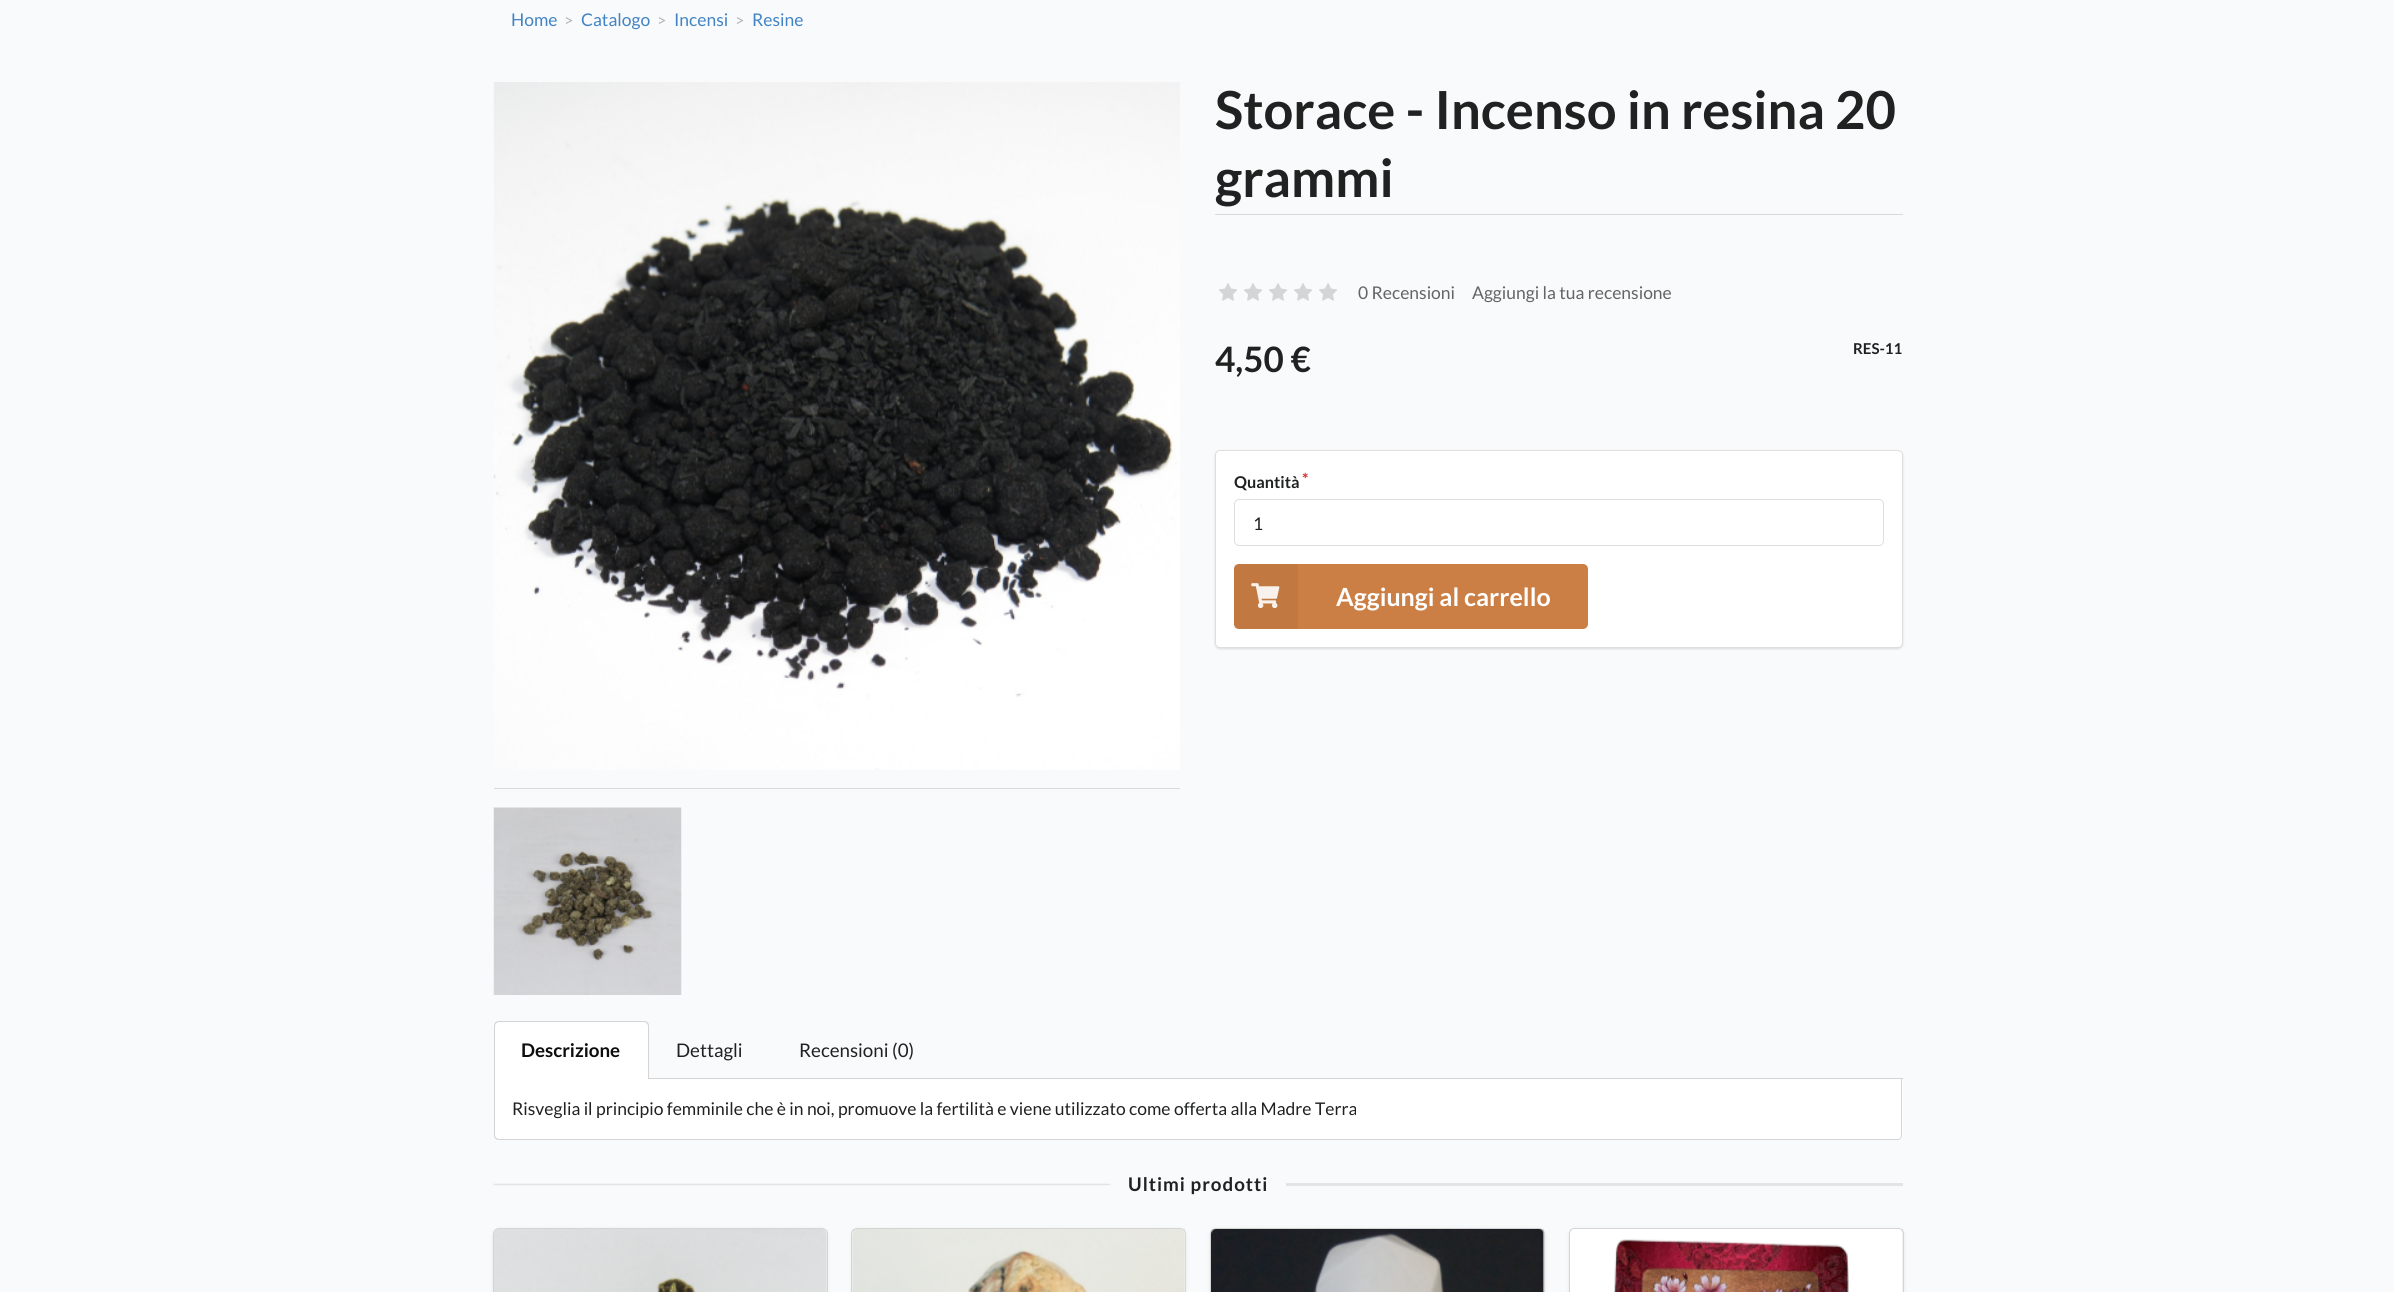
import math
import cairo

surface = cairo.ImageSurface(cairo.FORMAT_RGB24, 2394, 1292)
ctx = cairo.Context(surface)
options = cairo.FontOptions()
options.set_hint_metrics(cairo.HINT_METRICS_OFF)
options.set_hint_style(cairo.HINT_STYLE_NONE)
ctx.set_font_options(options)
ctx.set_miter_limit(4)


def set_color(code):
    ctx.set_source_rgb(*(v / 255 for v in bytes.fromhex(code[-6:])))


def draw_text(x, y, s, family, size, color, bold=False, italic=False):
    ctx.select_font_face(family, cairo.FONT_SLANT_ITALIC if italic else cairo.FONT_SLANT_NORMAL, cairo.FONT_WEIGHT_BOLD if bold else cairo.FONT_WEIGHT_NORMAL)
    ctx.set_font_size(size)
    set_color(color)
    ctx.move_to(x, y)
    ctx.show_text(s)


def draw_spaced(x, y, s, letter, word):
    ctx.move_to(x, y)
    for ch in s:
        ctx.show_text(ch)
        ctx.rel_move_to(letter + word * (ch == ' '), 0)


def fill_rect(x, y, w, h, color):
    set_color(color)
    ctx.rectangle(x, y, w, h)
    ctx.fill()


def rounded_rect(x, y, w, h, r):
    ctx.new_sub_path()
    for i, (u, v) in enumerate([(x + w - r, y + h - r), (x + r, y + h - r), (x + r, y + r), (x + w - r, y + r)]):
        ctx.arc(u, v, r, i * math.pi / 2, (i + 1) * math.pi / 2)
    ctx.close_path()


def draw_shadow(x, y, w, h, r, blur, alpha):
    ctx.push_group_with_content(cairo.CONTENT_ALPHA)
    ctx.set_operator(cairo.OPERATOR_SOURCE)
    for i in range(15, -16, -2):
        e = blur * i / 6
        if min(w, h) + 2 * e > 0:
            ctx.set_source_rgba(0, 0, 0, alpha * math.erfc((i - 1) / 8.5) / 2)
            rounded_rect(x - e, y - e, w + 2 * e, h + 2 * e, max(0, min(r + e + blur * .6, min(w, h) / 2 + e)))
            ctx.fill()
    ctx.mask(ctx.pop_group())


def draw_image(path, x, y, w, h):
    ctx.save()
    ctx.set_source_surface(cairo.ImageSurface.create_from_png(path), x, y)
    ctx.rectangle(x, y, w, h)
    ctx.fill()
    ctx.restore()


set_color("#f9fafb")
ctx.paint()
draw_text(511, 26, "Home", "Lato", 17.5, "#4183c4")
draw_text(564, 26, ">", "Lato", 16.25, "#b3b4b5")
draw_text(581, 26, "Catalogo", "Lato", 17.5, "#4183c4")
draw_text(657, 26, ">", "Lato", 16.25, "#b3b4b5")
draw_text(674, 26, "Incensi", "Lato", 17.5, "#4183c4")
draw_text(735, 26, ">", "Lato", 16.25, "#b3b4b5")
draw_text(752, 26, "Resine", "Lato", 17.5, "#4183c4")
draw_image("assets/img1.png", 493, 82, 687, 688)
fill_rect(494, 788, 686, 1, "#d9dadb")
draw_image("assets/img2.png", 493, 807, 189, 188)
fill_rect(1215, 214, 688, 1, "#d9dadb")
draw_text(1215, 129, "Storace - Incenso in resina 20", "Lato", 52.5, "#202121", bold=True)
draw_text(1215, 197, "grammi", "Lato", 52.5, "#202121", bold=True)
draw_image("assets/img3.png", 1219, 283, 18, 18)
draw_image("assets/img3.png", 1244, 283, 18, 18)
draw_image("assets/img3.png", 1269, 283, 18, 18)
draw_image("assets/img3.png", 1294, 283, 18, 18)
draw_image("assets/img3.png", 1319, 283, 18, 18)
draw_text(1358, 299, "0 Recensioni", "Lato", 17.5, "#646464")
draw_text(1472, 299, "Aggiungi la tua recensione", "Lato", 17.5, "#646464")
draw_text(1215, 372, "4,50 €", "Lato", 35, "#202121", bold=True)
draw_text(1853, 354, "RES-11", "Lato", 15, "#202121", bold=True)
set_color("#222426")
draw_shadow(1215, 451, 688, 198, 5, 1, 0.15)
set_color("#ffffff")
rounded_rect(1215, 450, 688, 198, 5)
ctx.fill()
rounded_rect(1215.5, 450.5, 687, 197, 4.5)
ctx.set_source_rgba(0.133, 0.141, 0.149, 0.15)
ctx.set_line_width(1)
ctx.stroke()
draw_text(1234, 488, "Quantità", "Lato", 16.25, "#202121", bold=True)
draw_text(1302, 485, "*", "Lato", 16.25, "#db2828", bold=True)
rounded_rect(1234.5, 499.5, 649, 46, 4.5)
set_color("#dedede")
ctx.stroke()
draw_text(1253, 530, "1", "Lato", 17.5, "#202121")
set_color("#cc7f44")
rounded_rect(1234, 564, 354, 65, 5)
ctx.fill()
ctx.set_source_rgba(0, 0, 0, 0.05)
ctx.rectangle(1234, 564, 64, 65)
ctx.fill()
draw_image("assets/img4.png", 1251, 583, 29, 26)
draw_text(1336, 606, "Aggiungi al carrello", "Lato", 25, "#ffffff", bold=True)
fill_rect(649, 1078, 1254, 1, "#d4d4d5")
set_color("#ffffff")
ctx.new_path()
ctx.move_to(499, 1021)
ctx.line_to(644, 1021)
ctx.curve_to(647, 1021, 649, 1023, 649, 1026)
ctx.line_to(649, 1079)
ctx.line_to(494, 1079)
ctx.line_to(494, 1026)
ctx.curve_to(494, 1023, 496, 1021, 499, 1021)
ctx.close_path()
ctx.fill()
set_color("#d4d4d5")
ctx.set_fill_rule(cairo.FILL_RULE_EVEN_ODD)
ctx.new_path()
ctx.move_to(499, 1021)
ctx.line_to(644, 1021)
ctx.curve_to(647, 1021, 649, 1023, 649, 1026)
ctx.line_to(649, 1079)
ctx.line_to(494, 1079)
ctx.line_to(494, 1026)
ctx.curve_to(494, 1023, 496, 1021, 499, 1021)
ctx.close_path()
ctx.move_to(499, 1022)
ctx.line_to(644, 1022)
ctx.curve_to(646, 1022, 648, 1024, 648, 1026)
ctx.line_to(648, 1079)
ctx.line_to(495, 1079)
ctx.line_to(495, 1026)
ctx.curve_to(495, 1024, 497, 1022, 499, 1022)
ctx.close_path()
ctx.fill()
draw_text(521, 1057, "Descrizione", "Lato", 18.75, "#0d0d0d", bold=True)
draw_text(676, 1057, "Dettagli", "Lato", 18.75, "#202121")
draw_text(799, 1057, "Recensioni (0)", "Lato", 18.75, "#202121")
set_color("#ffffff")
ctx.new_path()
ctx.move_to(494, 1079)
ctx.line_to(1903, 1079)
ctx.line_to(1903, 1135)
ctx.curve_to(1903, 1138, 1901, 1140, 1898, 1140)
ctx.line_to(499, 1140)
ctx.curve_to(496, 1140, 494, 1138, 494, 1135)
ctx.close_path()
ctx.fill()
set_color("#d4d4d5")
ctx.new_path()
ctx.move_to(494, 1079)
ctx.line_to(1902, 1079)
ctx.line_to(1902, 1135)
ctx.curve_to(1902, 1138, 1900, 1140, 1898, 1140)
ctx.line_to(499, 1140)
ctx.curve_to(496, 1140, 494, 1138, 494, 1135)
ctx.close_path()
ctx.move_to(495, 1079)
ctx.line_to(1901, 1079)
ctx.line_to(1901, 1135)
ctx.curve_to(1901, 1137, 1900, 1139, 1898, 1139)
ctx.line_to(499, 1139)
ctx.curve_to(497, 1139, 495, 1137, 495, 1135)
ctx.close_path()
ctx.fill()
draw_text(512, 1115, "Risveglia il principio femminile che è in noi, promuove la fertilità e viene utilizzato come offerta alla Madre Terra", "Lato", 17.5, "#202121")
draw_image("assets/img5.png", 493, 1183, 618, 3)
ctx.select_font_face("Lato", cairo.FONT_SLANT_NORMAL, cairo.FONT_WEIGHT_BOLD)
ctx.set_font_size(18.75)
draw_spaced(1128, 1191, "Ultimi prodotti", 1, 0)
fill_rect(1286, 1183, 617, 3, "#e2e4e5")
rounded_rect(493.5, 1228.5, 334, 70, 5.5)
set_color("#d4d4d5")
ctx.stroke()
set_color("#d4d4d5")
draw_shadow(494, 1230, 332, 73, 5, 2, 1)
draw_image("assets/img6.png", 494, 1229, 333, 63)
rounded_rect(851.5, 1228.5, 334, 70, 5.5)
set_color("#d4d4d5")
ctx.stroke()
set_color("#d4d4d5")
draw_shadow(853, 1230, 332, 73, 5, 2, 1)
set_color("#ffffff")
rounded_rect(853, 1229, 332, 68, 5)
ctx.fill()
ctx.set_source_rgba(0, 0, 0, 0.05)
ctx.rectangle(853, 1229, 332, 63)
ctx.fill()
draw_image("assets/img7.png", 853, 1229, 333, 63)
rounded_rect(1210.5, 1228.5, 334, 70, 5.5)
set_color("#d4d4d5")
ctx.stroke()
set_color("#d4d4d5")
draw_shadow(1211, 1230, 333, 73, 5, 2, 1)
set_color("#ffffff")
rounded_rect(1211, 1229, 333, 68, 5)
ctx.fill()
ctx.set_source_rgba(0, 0, 0, 0.05)
ctx.rectangle(1211, 1229, 333, 63)
ctx.fill()
draw_image("assets/img8.png", 1211, 1229, 333, 63)
rounded_rect(1569.5, 1228.5, 334, 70, 5.5)
set_color("#d4d4d5")
ctx.stroke()
set_color("#d4d4d5")
draw_shadow(1570, 1230, 333, 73, 5, 2, 1)
set_color("#ffffff")
rounded_rect(1570, 1229, 333, 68, 5)
ctx.fill()
ctx.set_source_rgba(0, 0, 0, 0.05)
ctx.rectangle(1570, 1229, 333, 63)
ctx.fill()
draw_image("assets/img9.png", 1570, 1229, 332, 63)
surface.write_to_png("output.png")
